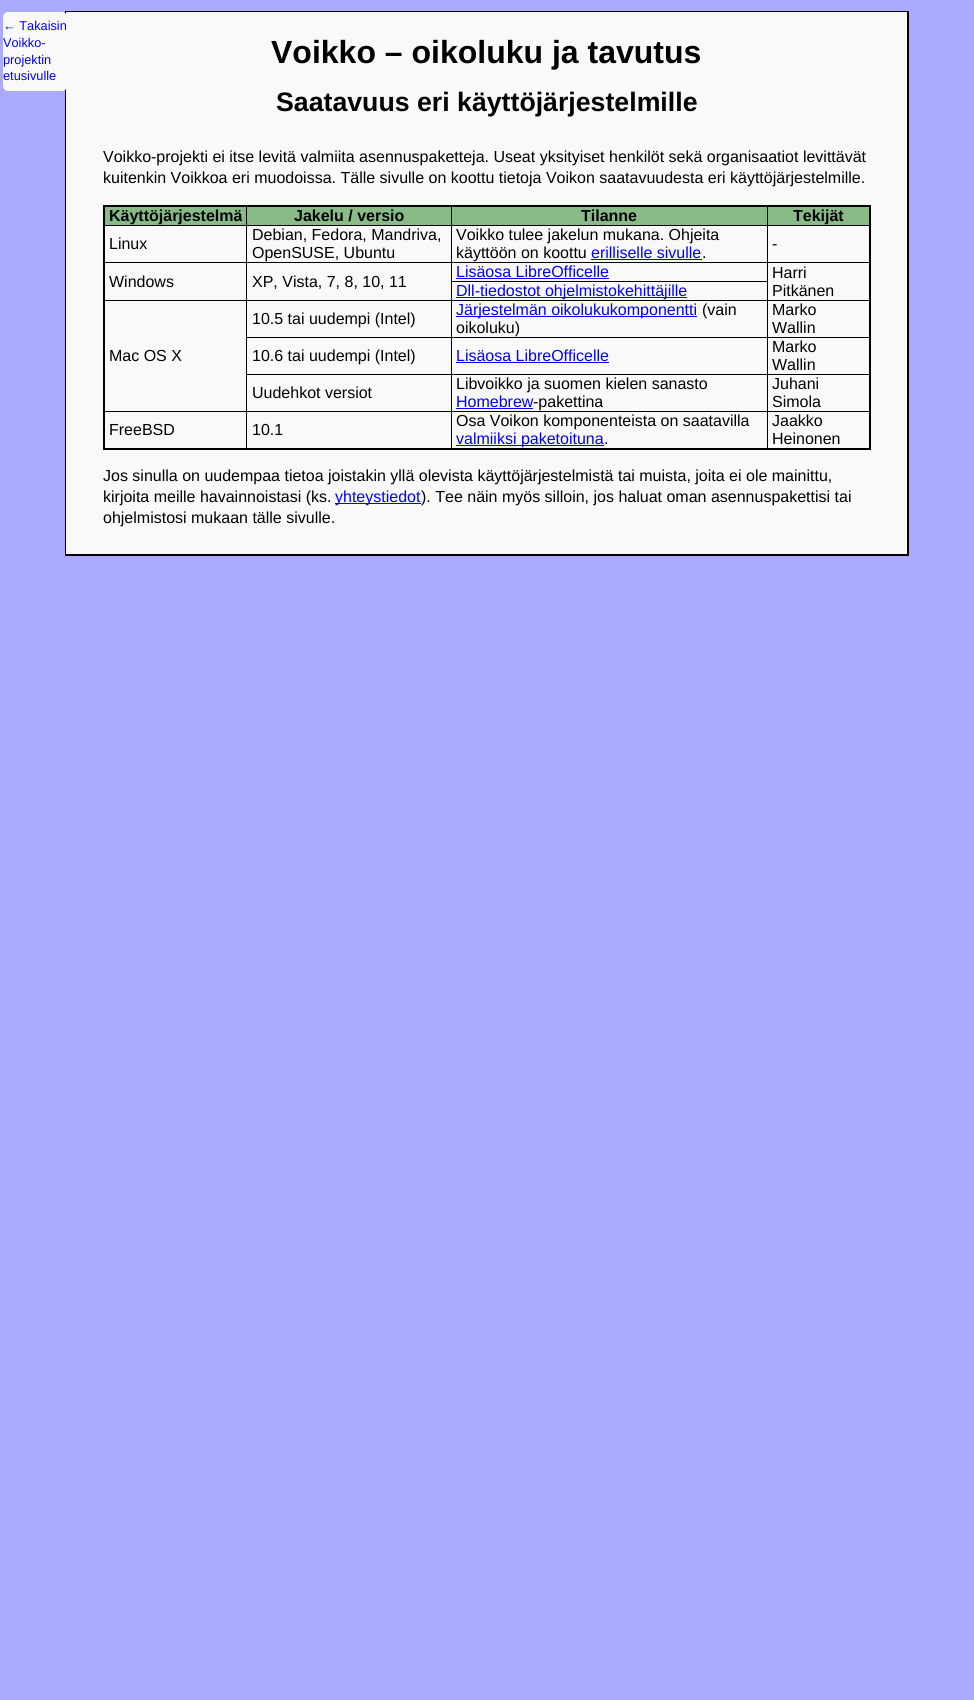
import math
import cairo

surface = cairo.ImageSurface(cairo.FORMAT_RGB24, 974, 1700)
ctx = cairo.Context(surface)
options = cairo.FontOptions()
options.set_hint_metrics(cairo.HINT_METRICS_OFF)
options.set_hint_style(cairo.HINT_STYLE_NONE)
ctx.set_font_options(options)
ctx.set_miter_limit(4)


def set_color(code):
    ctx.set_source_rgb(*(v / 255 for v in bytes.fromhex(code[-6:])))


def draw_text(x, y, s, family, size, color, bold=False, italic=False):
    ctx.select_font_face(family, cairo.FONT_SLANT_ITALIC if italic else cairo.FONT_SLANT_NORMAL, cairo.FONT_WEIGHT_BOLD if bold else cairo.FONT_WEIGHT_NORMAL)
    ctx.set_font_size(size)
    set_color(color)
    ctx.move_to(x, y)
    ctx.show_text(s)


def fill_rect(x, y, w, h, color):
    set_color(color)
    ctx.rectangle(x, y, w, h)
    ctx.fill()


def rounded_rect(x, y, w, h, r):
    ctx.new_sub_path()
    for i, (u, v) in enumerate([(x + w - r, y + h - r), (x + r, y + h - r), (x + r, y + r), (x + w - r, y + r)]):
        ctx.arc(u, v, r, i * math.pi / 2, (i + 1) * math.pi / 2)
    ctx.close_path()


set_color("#aaaaff")
ctx.paint()
fill_rect(66, 12, 841, 542, "#f9f9f9")
fill_rect(65, 11, 844, 1, "#000000")
fill_rect(907, 11, 2, 545, "#000000")
fill_rect(65, 554, 844, 2, "#000000")
fill_rect(65, 11, 1, 545, "#000000")
set_color("#f9f9f9")
rounded_rect(3, 12, 64, 79, 5)
ctx.fill()
draw_text(3, 30, "← Takaisin", "Liberation Sans", 12.75, "#0000ff")
draw_text(3, 47, "Voikko-", "Liberation Sans", 12.75, "#0000ff")
draw_text(3, 64, "projektin", "Liberation Sans", 12.75, "#0000ff")
draw_text(3, 80, "etusivulle", "Liberation Sans", 12.75, "#0000ff")
draw_text(271, 63, "Voikko – oikoluku ja tavutus", "Liberation Sans", 32, "#000000", bold=True)
draw_text(276, 111, "Saatavuus eri käyttöjärjestelmille", "Liberation Sans", 26.7, "#000000", bold=True)
draw_text(103, 162, "Voikko-projekti ei itse levitä valmiita asennuspaketteja. Useat yksityiset henkilöt sekä organisaatiot levittävät", "Liberation Sans", 16, "#000000")
draw_text(103, 183, "kuitenkin Voikkoa eri muodoissa. Tälle sivulle on koottu tietoja Voikon saatavuudesta eri käyttöjärjestelmille.", "Liberation Sans", 16, "#000000")
fill_rect(767, 225, 103, 1, "#000000")
fill_rect(767, 262, 103, 1, "#000000")
fill_rect(451, 281, 317, 1, "#000000")
fill_rect(767, 300, 103, 1, "#000000")
fill_rect(767, 337, 103, 1, "#000000")
fill_rect(767, 374, 103, 1, "#000000")
fill_rect(767, 411, 103, 1, "#000000")
fill_rect(767, 411, 1, 39, "#000000")
fill_rect(451, 411, 317, 1, "#000000")
fill_rect(767, 374, 1, 38, "#000000")
fill_rect(451, 374, 317, 1, "#000000")
fill_rect(767, 337, 1, 38, "#000000")
fill_rect(451, 337, 317, 1, "#000000")
fill_rect(767, 300, 1, 38, "#000000")
fill_rect(451, 300, 317, 1, "#000000")
fill_rect(767, 262, 1, 39, "#000000")
fill_rect(451, 262, 317, 1, "#000000")
fill_rect(767, 225, 1, 38, "#000000")
fill_rect(451, 225, 317, 1, "#000000")
fill_rect(451, 411, 1, 39, "#000000")
fill_rect(246, 411, 206, 1, "#000000")
fill_rect(451, 374, 1, 38, "#000000")
fill_rect(246, 374, 206, 1, "#000000")
fill_rect(451, 337, 1, 38, "#000000")
fill_rect(246, 337, 206, 1, "#000000")
fill_rect(451, 300, 1, 38, "#000000")
fill_rect(246, 300, 206, 1, "#000000")
fill_rect(451, 281, 1, 20, "#000000")
fill_rect(451, 262, 1, 20, "#000000")
fill_rect(246, 262, 206, 1, "#000000")
fill_rect(451, 225, 1, 38, "#000000")
fill_rect(246, 225, 206, 1, "#000000")
fill_rect(246, 411, 1, 39, "#000000")
fill_rect(103, 411, 144, 1, "#000000")
fill_rect(246, 374, 1, 38, "#000000")
fill_rect(246, 337, 1, 38, "#000000")
fill_rect(246, 300, 1, 38, "#000000")
fill_rect(103, 300, 144, 1, "#000000")
fill_rect(246, 262, 1, 39, "#000000")
fill_rect(103, 262, 144, 1, "#000000")
fill_rect(246, 225, 1, 38, "#000000")
fill_rect(103, 225, 144, 1, "#000000")
fill_rect(246, 206, 1, 20, "#000000")
fill_rect(451, 206, 1, 20, "#000000")
fill_rect(767, 206, 1, 20, "#000000")
fill_rect(103, 205, 768, 2, "#000000")
fill_rect(869, 205, 2, 245, "#000000")
fill_rect(103, 448, 768, 2, "#000000")
fill_rect(103, 205, 2, 245, "#000000")
fill_rect(105, 207, 141, 18, "#88bb88")
draw_text(109, 221, "Käyttöjärjestelmä", "Liberation Sans", 16, "#000000", bold=True)
fill_rect(247, 207, 204, 18, "#88bb88")
draw_text(294, 221, "Jakelu / versio", "Liberation Sans", 16, "#000000", bold=True)
fill_rect(452, 207, 315, 18, "#88bb88")
draw_text(581, 221, "Tilanne", "Liberation Sans", 16, "#000000", bold=True)
fill_rect(768, 207, 101, 18, "#88bb88")
draw_text(793, 221, "Tekijät", "Liberation Sans", 16, "#000000", bold=True)
draw_text(109, 249, "Linux", "Liberation Sans", 16, "#000000")
draw_text(252, 240, "Debian, Fedora, Mandriva,", "Liberation Sans", 16, "#000000")
draw_text(252, 258, "OpenSUSE, Ubuntu", "Liberation Sans", 16, "#000000")
draw_text(456, 240, "Voikko tulee jakelun mukana. Ohjeita", "Liberation Sans", 16, "#000000")
draw_text(456, 258, "käyttöön on koottu", "Liberation Sans", 16, "#000000")
draw_text(591, 258, "erilliselle sivulle", "Liberation Sans", 16, "#0000ff")
fill_rect(591, 259, 111, 1, "#0000ff")
draw_text(702, 258, ".", "Liberation Sans", 16, "#000000")
draw_text(772, 249, "-", "Liberation Sans", 16, "#000000")
draw_text(109, 287, "Windows", "Liberation Sans", 16, "#000000")
draw_text(252, 287, "XP, Vista, 7, 8, 10, 11", "Liberation Sans", 16, "#000000")
draw_text(456, 277, "Lisäosa LibreOfficelle", "Liberation Sans", 16, "#0000ff")
fill_rect(456, 278, 153, 1, "#0000ff")
draw_text(772, 278, "Harri", "Liberation Sans", 16, "#000000")
draw_text(772, 296, "Pitkänen", "Liberation Sans", 16, "#000000")
fill_rect(456, 297, 231, 1, "#0000ff")
draw_text(456, 296, "Dll-tiedostot ohjelmistokehittäjille", "Liberation Sans", 16, "#0000ff")
draw_text(252, 324, "10.5 tai uudempi (Intel)", "Liberation Sans", 16, "#000000")
fill_rect(456, 316, 241, 1, "#0000ff")
draw_text(456, 315, "Järjestelmän oikolukukomponentti", "Liberation Sans", 16, "#0000ff")
draw_text(702, 315, "(vain", "Liberation Sans", 16, "#000000")
draw_text(456, 333, "oikoluku)", "Liberation Sans", 16, "#000000")
draw_text(772, 315, "Marko", "Liberation Sans", 16, "#000000")
draw_text(772, 333, "Wallin", "Liberation Sans", 16, "#000000")
draw_text(109, 361, "Mac OS X", "Liberation Sans", 16, "#000000")
draw_text(252, 361, "10.6 tai uudempi (Intel)", "Liberation Sans", 16, "#000000")
draw_text(456, 361, "Lisäosa LibreOfficelle", "Liberation Sans", 16, "#0000ff")
fill_rect(456, 362, 153, 1, "#0000ff")
draw_text(772, 352, "Marko", "Liberation Sans", 16, "#000000")
draw_text(772, 370, "Wallin", "Liberation Sans", 16, "#000000")
draw_text(252, 398, "Uudehkot versiot", "Liberation Sans", 16, "#000000")
draw_text(456, 389, "Libvoikko ja suomen kielen sanasto", "Liberation Sans", 16, "#000000")
draw_text(456, 407, "Homebrew", "Liberation Sans", 16, "#0000ff")
fill_rect(456, 408, 77, 1, "#0000ff")
draw_text(533, 407, "-pakettina", "Liberation Sans", 16, "#000000")
draw_text(772, 389, "Juhani", "Liberation Sans", 16, "#000000")
draw_text(772, 407, "Simola", "Liberation Sans", 16, "#000000")
draw_text(109, 435, "FreeBSD", "Liberation Sans", 16, "#000000")
draw_text(252, 435, "10.1", "Liberation Sans", 16, "#000000")
draw_text(456, 426, "Osa Voikon komponenteista on saatavilla", "Liberation Sans", 16, "#000000")
fill_rect(456, 445, 148, 1, "#0000ff")
draw_text(456, 444, "valmiiksi paketoituna", "Liberation Sans", 16, "#0000ff")
draw_text(604, 444, ".", "Liberation Sans", 16, "#000000")
draw_text(772, 426, "Jaakko", "Liberation Sans", 16, "#000000")
draw_text(772, 444, "Heinonen", "Liberation Sans", 16, "#000000")
draw_text(103, 481, "Jos sinulla on uudempaa tietoa joistakin yllä olevista käyttöjärjestelmistä tai muista, joita ei ole mainittu,", "Liberation Sans", 16, "#000000")
draw_text(103, 502, "kirjoita meille havainnoistasi (ks.", "Liberation Sans", 16, "#000000")
fill_rect(335, 503, 86, 1, "#0000ff")
draw_text(335, 502, "yhteystiedot", "Liberation Sans", 16, "#0000ff")
draw_text(421, 502, "). Tee näin myös silloin, jos haluat oman asennuspakettisi tai", "Liberation Sans", 16, "#000000")
draw_text(103, 523, "ohjelmistosi mukaan tälle sivulle.", "Liberation Sans", 16, "#000000")
surface.write_to_png("output.png")
